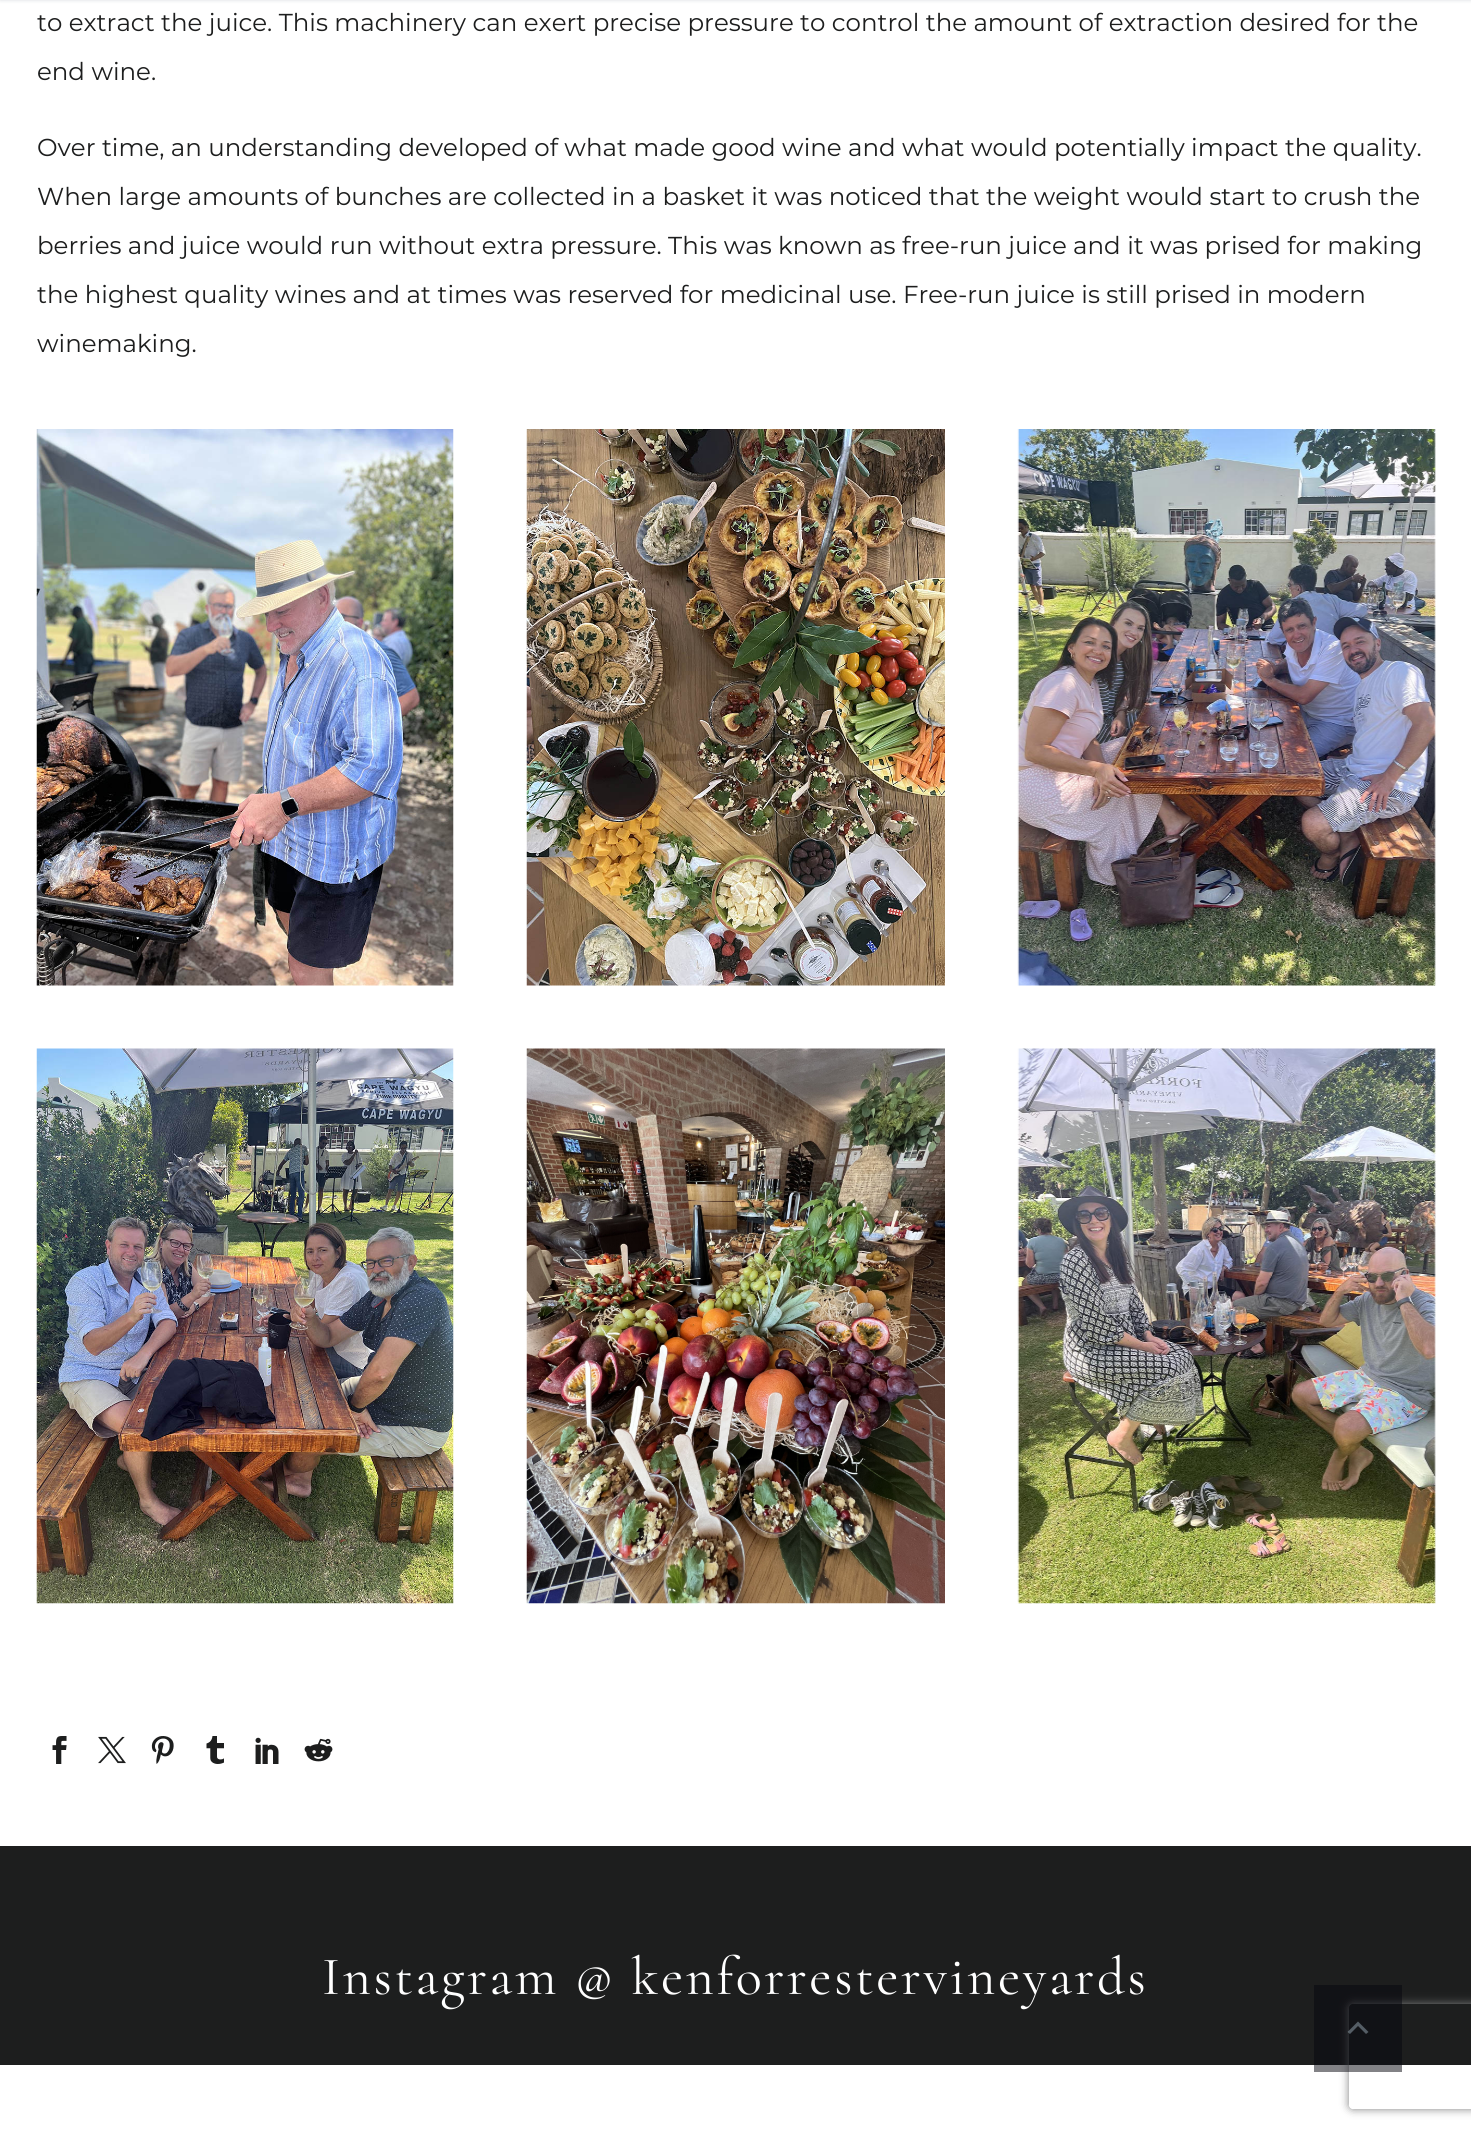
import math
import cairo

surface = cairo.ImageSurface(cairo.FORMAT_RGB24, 1471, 2133)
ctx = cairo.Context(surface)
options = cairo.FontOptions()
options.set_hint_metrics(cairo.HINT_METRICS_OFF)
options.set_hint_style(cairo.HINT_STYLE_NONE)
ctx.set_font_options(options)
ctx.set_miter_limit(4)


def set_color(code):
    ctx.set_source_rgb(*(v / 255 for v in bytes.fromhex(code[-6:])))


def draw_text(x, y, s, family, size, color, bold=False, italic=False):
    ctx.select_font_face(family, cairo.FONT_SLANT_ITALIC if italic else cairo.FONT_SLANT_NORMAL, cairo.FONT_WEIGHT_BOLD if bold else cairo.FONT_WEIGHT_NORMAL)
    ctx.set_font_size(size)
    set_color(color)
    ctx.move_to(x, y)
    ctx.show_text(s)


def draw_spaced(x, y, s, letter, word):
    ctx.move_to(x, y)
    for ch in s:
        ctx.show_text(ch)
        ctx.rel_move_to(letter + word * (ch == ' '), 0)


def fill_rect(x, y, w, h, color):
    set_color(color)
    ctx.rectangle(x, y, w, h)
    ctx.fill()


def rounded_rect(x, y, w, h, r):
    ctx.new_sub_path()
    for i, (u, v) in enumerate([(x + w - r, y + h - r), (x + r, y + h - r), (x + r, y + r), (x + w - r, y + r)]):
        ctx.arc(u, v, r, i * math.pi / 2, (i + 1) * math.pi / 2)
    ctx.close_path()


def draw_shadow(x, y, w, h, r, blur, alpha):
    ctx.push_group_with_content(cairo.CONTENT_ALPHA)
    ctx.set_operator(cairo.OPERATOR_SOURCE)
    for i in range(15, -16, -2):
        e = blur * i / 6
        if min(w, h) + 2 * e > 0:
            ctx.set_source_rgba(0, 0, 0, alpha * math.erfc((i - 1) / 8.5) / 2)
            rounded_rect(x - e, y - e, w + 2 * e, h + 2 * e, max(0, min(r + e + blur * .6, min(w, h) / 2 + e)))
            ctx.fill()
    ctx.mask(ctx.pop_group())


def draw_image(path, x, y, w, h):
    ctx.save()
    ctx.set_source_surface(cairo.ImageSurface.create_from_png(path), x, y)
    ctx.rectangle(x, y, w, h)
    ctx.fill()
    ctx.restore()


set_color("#ffffff")
ctx.paint()
set_color("#384554")
draw_shadow(0, -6, 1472, 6, 0, 2, 0.2)
draw_text(37, 31, "to extract the juice. This machinery can exert precise pressure to control the amount of extraction desired for the", "Montserrat", 24.5, "#1d1e1e")
draw_text(37, 80, "end wine.", "Montserrat", 24.5, "#1d1e1e")
draw_text(37, 156, "Over time, an understanding developed of what made good wine and what would potentially impact the quality.", "Montserrat", 24.5, "#1d1e1e")
draw_text(37, 205, "When large amounts of bunches are collected in a basket it was noticed that the weight would start to crush the", "Montserrat", 24.5, "#1d1e1e")
draw_text(37, 254, "berries and juice would run without extra pressure. This was known as free-run juice and it was prised for making", "Montserrat", 24.5, "#1d1e1e")
draw_text(37, 303, "the highest quality wines and at times was reserved for medicinal use. Free-run juice is still prised in modern", "Montserrat", 24.5, "#1d1e1e")
draw_text(37, 352, "winemaking.", "Montserrat", 24.5, "#1d1e1e")
draw_image("assets/img1.png", 36, 429, 418, 557)
draw_image("assets/img2.png", 526, 429, 419, 557)
draw_image("assets/img3.png", 1017, 429, 419, 557)
draw_image("assets/img4.png", 36, 1048, 418, 556)
draw_image("assets/img5.png", 526, 1048, 419, 556)
draw_image("assets/img6.png", 1017, 1048, 419, 556)
draw_image("assets/img7.png", 52, 1736, 15, 28)
draw_image("assets/img8.png", 98, 1736, 28, 28)
draw_image("assets/img9.png", 151, 1736, 23, 28)
draw_image("assets/img10.png", 206, 1736, 18, 28)
draw_image("assets/img11.png", 255, 1737, 24, 27)
draw_image("assets/img12.png", 304, 1738, 29, 24)
fill_rect(0, 1846, 1471, 219, "#1d1e1e")
ctx.select_font_face("Cormorant")
ctx.set_font_size(54.25)
set_color("#ffffff")
draw_spaced(322, 1994, "Instagram @ kenforrestervineyards", 2.7, 0)
ctx.save()
ctx.set_fill_rule(cairo.FILL_RULE_EVEN_ODD)
ctx.new_path()
ctx.move_to(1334, 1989)
ctx.line_to(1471, 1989)
ctx.line_to(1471, 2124)
ctx.line_to(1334, 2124)
ctx.close_path()
ctx.move_to(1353, 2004)
ctx.line_to(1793, 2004)
ctx.curve_to(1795, 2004, 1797, 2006, 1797, 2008)
ctx.line_to(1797, 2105)
ctx.curve_to(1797, 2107, 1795, 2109, 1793, 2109)
ctx.line_to(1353, 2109)
ctx.curve_to(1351, 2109, 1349, 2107, 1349, 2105)
ctx.line_to(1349, 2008)
ctx.curve_to(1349, 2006, 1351, 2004, 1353, 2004)
ctx.close_path()
ctx.clip()
set_color("#808080")
draw_shadow(1349, 2004, 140, 105, 4, 4.5, 1)
ctx.restore()
ctx.set_source_rgba(0.024, 0.024, 0.059, 0.5)
ctx.rectangle(1314, 1985, 88, 87)
ctx.fill()
ctx.set_source_rgba(0.6, 0.663, 0.71, 0.5)
ctx.new_path()
ctx.move_to(1350, 2034)
ctx.line_to(1358, 2026)
ctx.line_to(1366, 2034)
ctx.line_to(1368.5, 2032)
ctx.line_to(1358, 2021.5)
ctx.line_to(1347.5, 2032)
ctx.close_path()
ctx.fill()
surface.write_to_png("output.png")
